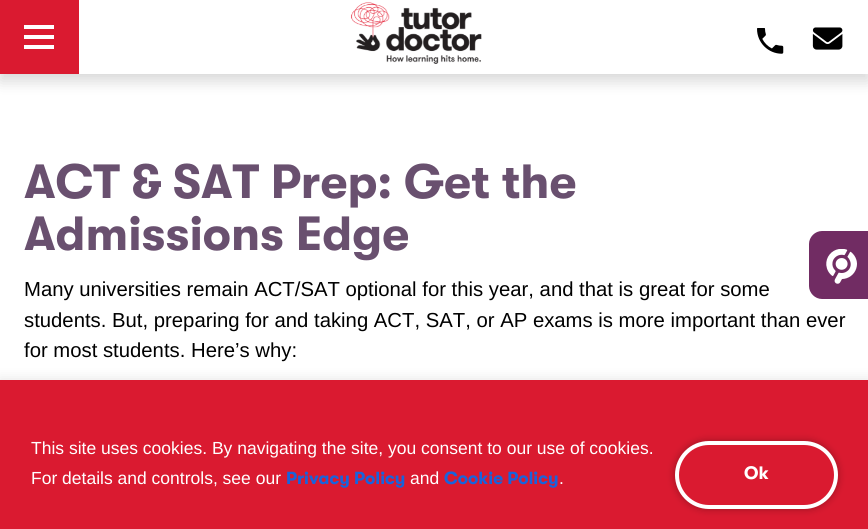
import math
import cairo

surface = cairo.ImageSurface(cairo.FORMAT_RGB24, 868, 529)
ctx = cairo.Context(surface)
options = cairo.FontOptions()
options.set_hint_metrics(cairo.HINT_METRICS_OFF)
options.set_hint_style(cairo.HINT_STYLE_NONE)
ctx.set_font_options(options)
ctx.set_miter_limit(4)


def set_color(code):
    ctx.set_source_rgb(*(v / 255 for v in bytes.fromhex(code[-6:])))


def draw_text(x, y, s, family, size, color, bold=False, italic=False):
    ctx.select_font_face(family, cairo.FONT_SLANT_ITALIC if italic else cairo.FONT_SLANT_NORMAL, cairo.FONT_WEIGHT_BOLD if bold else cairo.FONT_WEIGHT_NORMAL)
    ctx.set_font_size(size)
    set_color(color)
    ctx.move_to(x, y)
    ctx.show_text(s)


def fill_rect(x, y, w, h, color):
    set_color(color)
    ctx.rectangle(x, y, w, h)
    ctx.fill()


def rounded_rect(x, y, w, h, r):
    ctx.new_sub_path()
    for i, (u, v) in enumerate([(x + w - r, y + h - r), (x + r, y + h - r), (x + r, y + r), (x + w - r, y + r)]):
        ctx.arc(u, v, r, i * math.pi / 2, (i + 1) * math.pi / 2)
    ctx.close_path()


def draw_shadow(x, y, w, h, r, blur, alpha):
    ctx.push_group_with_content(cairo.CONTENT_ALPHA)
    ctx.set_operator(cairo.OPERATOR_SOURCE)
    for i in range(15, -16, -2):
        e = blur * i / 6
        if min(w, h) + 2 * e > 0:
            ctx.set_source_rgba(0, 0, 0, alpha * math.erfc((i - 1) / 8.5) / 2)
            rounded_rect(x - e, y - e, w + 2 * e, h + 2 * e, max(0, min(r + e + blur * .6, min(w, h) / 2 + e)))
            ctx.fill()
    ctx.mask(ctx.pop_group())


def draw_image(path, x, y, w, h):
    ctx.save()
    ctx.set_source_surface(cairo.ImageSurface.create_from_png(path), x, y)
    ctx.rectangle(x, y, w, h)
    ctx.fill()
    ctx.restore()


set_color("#ffffff")
ctx.paint()
set_color("#000000")
draw_shadow(0, 8, 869, 73, 0, 7.5, 0.16)
fill_rect(79, 0, 789, 74, "#ffffff")
fill_rect(0, 0, 79, 74, "#da1a30")
fill_rect(24, 25, 30, 4, "#ffffff")
fill_rect(24, 35, 30, 4, "#ffffff")
fill_rect(24, 45, 30, 4, "#ffffff")
draw_image("assets/img1.png", 351, 2, 131, 62)
draw_image("assets/img2.png", 757, 28, 27, 26)
draw_image("assets/img3.png", 812, 27, 31, 23)
draw_text(24, 198, "ACT & SAT Prep: Get the", "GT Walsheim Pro", 48, "#69506f", bold=True)
draw_text(24, 250, "Admissions Edge", "GT Walsheim Pro", 48, "#69506f", bold=True)
draw_text(24, 296, "Many universities remain ACT/SAT optional for this year, and that is great for some", "Liberation Sans", 20.3, "#000000")
draw_text(24, 327, "students. But, preparing for and taking ACT, SAT, or AP exams is more important than ever", "Liberation Sans", 20.3, "#000000")
draw_text(24, 357, "for most students. Here’s why:", "Liberation Sans", 20.3, "#000000")
set_color("#712c63")
ctx.new_path()
ctx.move_to(822, 231)
ctx.line_to(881, 231)
ctx.line_to(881, 299)
ctx.line_to(822, 299)
ctx.curve_to(815, 299, 809, 293, 809, 286)
ctx.line_to(809, 244)
ctx.curve_to(809, 237, 815, 231, 822, 231)
ctx.close_path()
ctx.fill()
draw_image("assets/img4.png", 826, 249, 31, 35)
set_color("#acabab")
draw_shadow(0, 379, 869, 150, 0, 6, 0.3)
fill_rect(0, 380, 868, 149, "#da1a30")
draw_text(31, 454, "This site uses cookies. By navigating the site, you consent to our use of cookies.", "Liberation Sans", 17.5, "#ffffff")
draw_text(31, 484, "For details and controls, see our", "Liberation Sans", 17.5, "#ffffff")
draw_text(286, 484, "Privacy Policy", "GT Walsheim Pro", 17.5, "#1863dc", bold=True)
draw_text(410, 484, "and", "Liberation Sans", 17.5, "#ffffff")
draw_text(444, 484, "Cookie Policy", "GT Walsheim Pro", 17.5, "#1863dc", bold=True)
draw_text(559, 484, ".", "Liberation Sans", 17.5, "#ffffff")
set_color("#000000")
draw_shadow(675, 441, 163, 68, 34, 4, 0.3)
set_color("#da1a30")
rounded_rect(677, 443, 159, 64, 32)
ctx.fill_preserve()
set_color("#ffffff")
ctx.set_line_width(4)
ctx.stroke()
draw_text(744, 479, "Ok", "GT Walsheim Pro", 18, "#ffffff", bold=True)
surface.write_to_png("output.png")
